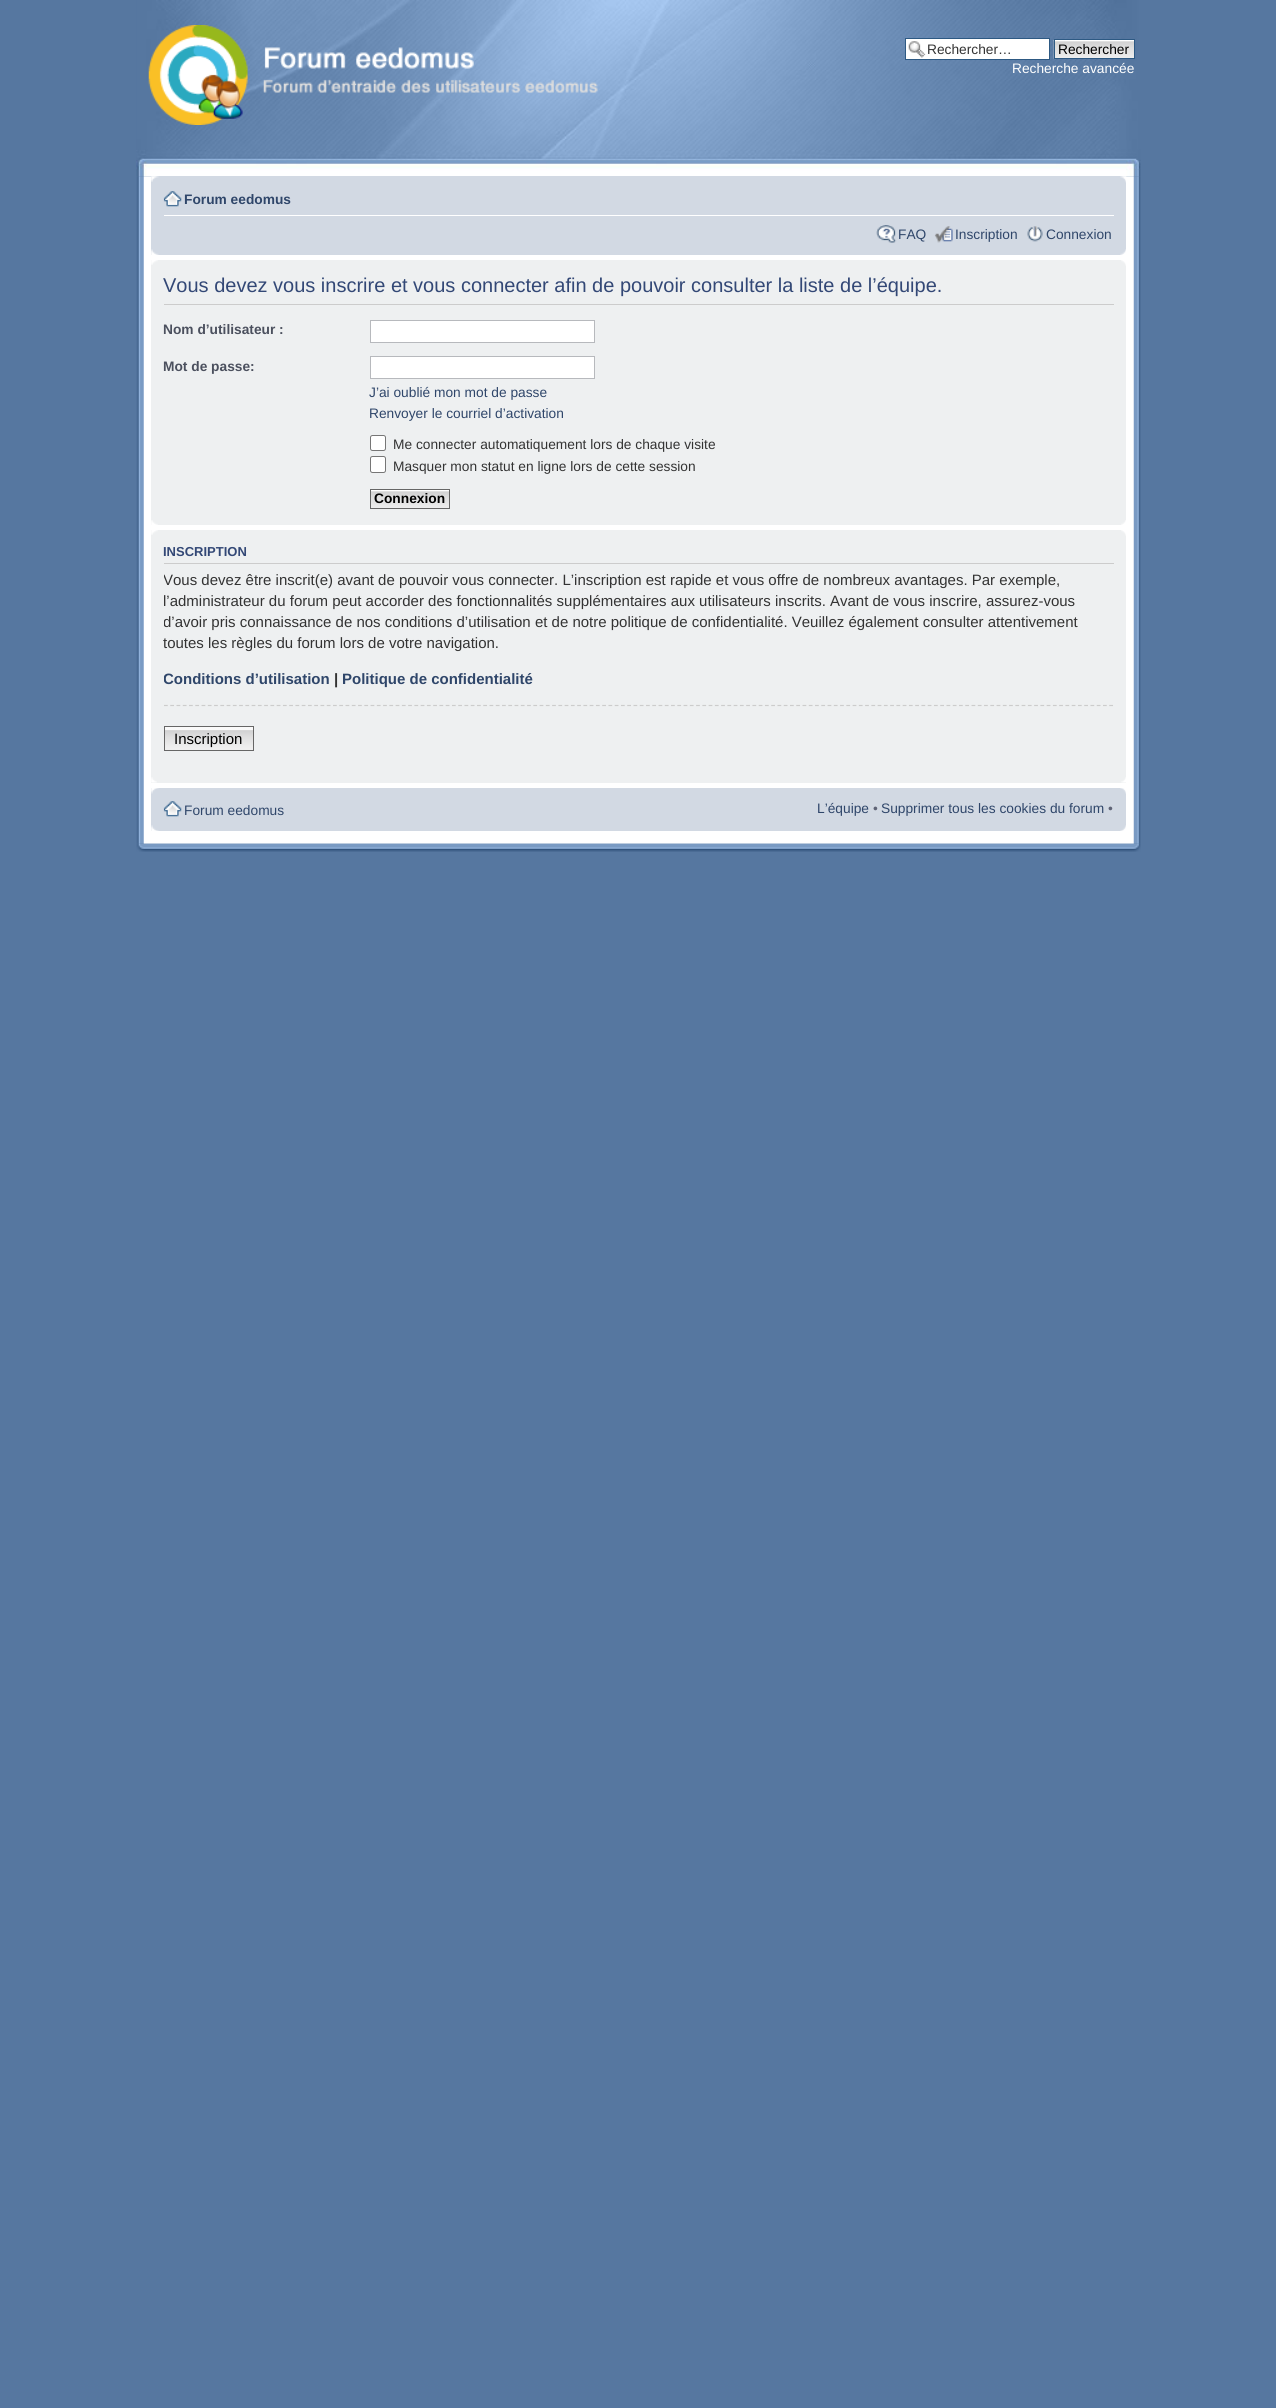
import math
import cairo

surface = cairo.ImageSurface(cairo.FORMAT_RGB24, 1276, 2408)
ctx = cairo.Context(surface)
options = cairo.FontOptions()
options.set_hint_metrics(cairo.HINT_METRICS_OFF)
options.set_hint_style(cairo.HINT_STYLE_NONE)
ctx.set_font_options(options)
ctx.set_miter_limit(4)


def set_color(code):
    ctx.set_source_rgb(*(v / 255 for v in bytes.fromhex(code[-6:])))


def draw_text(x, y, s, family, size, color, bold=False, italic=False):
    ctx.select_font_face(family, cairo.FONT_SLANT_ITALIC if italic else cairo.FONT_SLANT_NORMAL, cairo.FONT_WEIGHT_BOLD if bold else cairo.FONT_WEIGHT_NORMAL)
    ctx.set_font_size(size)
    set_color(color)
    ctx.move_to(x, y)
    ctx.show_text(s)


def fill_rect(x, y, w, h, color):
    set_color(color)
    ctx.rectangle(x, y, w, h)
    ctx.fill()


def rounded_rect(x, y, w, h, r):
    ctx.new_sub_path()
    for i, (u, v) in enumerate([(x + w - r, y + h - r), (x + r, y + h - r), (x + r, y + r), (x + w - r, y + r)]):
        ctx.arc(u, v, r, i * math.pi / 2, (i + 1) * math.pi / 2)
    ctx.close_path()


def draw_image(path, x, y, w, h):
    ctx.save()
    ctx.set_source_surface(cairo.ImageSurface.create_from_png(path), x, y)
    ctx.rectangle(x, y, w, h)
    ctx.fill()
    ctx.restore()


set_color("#5677a0")
ctx.paint()
draw_image("assets/img1.png", 136, 0, 1005, 177)
draw_image("assets/img2.png", 148, 25, 450, 100)
fill_rect(906, 39, 143, 20, "#ffffff")
draw_image("assets/img3.png", 908, 41, 18, 17)
ctx.rectangle(905.5, 38.5, 144, 21)
set_color("#2d5983")
ctx.set_line_width(1)
ctx.stroke()
draw_text(927, 54, "Rechercher…", "Liberation Sans", 13.75, "#333333")
draw_image("assets/img4.png", 1053, 40, 81, 19)
ctx.rectangle(1054.5, 39.5, 80, 19)
set_color("#2d5983")
ctx.stroke()
draw_text(1058, 54, "Rechercher", "Liberation Sans", 13.75, "#000000")
draw_text(1012, 73, "Recherche avancée", "Liberation Sans", 13.75, "#ffffff")
draw_image("assets/img5.png", 136, 176, 1005, 668)
fill_rect(151, 176, 975, 79, "#d2d9e3")
draw_image("assets/img6.png", 151, 176, 8, 6)
draw_image("assets/img7.png", 1120, 176, 7, 7)
fill_rect(164, 215, 950, 1, "#ffffff")
draw_image("assets/img8.png", 163, 191, 19, 16)
draw_text(184, 204, "Forum eedomus", "Liberation Sans", 13.75, "#2f466a", bold=True)
draw_image("assets/img9.png", 876, 225, 21, 18)
draw_text(898, 239, "FAQ", "Liberation Sans", 13.75, "#2f466a")
draw_image("assets/img10.png", 934, 226, 19, 17)
draw_text(955, 239, "Inscription", "Liberation Sans", 13.75, "#2f466a")
draw_image("assets/img11.png", 1027, 226, 16, 16)
draw_text(1046, 239, "Connexion", "Liberation Sans", 13.75, "#2f466a")
draw_image("assets/img12.png", 151, 249, 8, 6)
draw_image("assets/img13.png", 1120, 249, 6, 6)
fill_rect(151, 260, 975, 265, "#eef0f1")
draw_image("assets/img14.png", 151, 260, 7, 5)
draw_image("assets/img15.png", 1121, 260, 5, 6)
fill_rect(164, 304, 950, 1, "#cccccc")
draw_text(163, 292, "Vous devez vous inscrire et vous connecter afin de pouvoir consulter la liste de l’équipe.", "Liberation Sans", 20, "#334876")
draw_text(163, 334, "Nom d’utilisateur :", "Liberation Sans", 13.75, "#4b505e", bold=True)
set_color("#ffffff")
ctx.rectangle(370.5, 320.5, 224, 22)
ctx.fill_preserve()
set_color("#b7b9bd")
ctx.stroke()
draw_text(163, 371, "Mot de passe:", "Liberation Sans", 13.75, "#4b505e", bold=True)
set_color("#ffffff")
ctx.rectangle(370.5, 356.5, 224, 22)
ctx.fill_preserve()
set_color("#b7b9bd")
ctx.stroke()
draw_text(369, 397, "J’ai oublié mon mot de passe", "Liberation Sans", 13.75, "#2f466a")
draw_text(369, 418, "Renvoyer le courriel d’activation", "Liberation Sans", 13.75, "#2f466a")
set_color("#ffffff")
rounded_rect(370.5, 435.5, 15, 15, 2)
ctx.fill_preserve()
set_color("#767676")
ctx.stroke()
draw_text(393, 449, "Me connecter automatiquement lors de chaque visite", "Liberation Sans", 13.75, "#333333")
set_color("#ffffff")
rounded_rect(370.5, 456.5, 15, 16, 2)
ctx.fill_preserve()
set_color("#767676")
ctx.stroke()
draw_text(393, 471, "Masquer mon statut en ligne lors de cette session", "Liberation Sans", 13.75, "#333333")
draw_image("assets/img16.png", 371, 490, 78, 18)
ctx.rectangle(370.5, 489.5, 79, 19)
set_color("#666666")
ctx.stroke()
draw_text(374, 503, "Connexion", "Liberation Sans", 13.75, "#000000", bold=True)
draw_image("assets/img17.png", 151, 520, 7, 5)
draw_image("assets/img18.png", 1121, 520, 5, 5)
fill_rect(151, 530, 975, 253, "#eef0f1")
draw_image("assets/img14.png", 151, 530, 7, 5)
draw_image("assets/img15.png", 1121, 530, 5, 6)
fill_rect(164, 563, 950, 1, "#cccccc")
draw_text(163, 556, "INSCRIPTION", "Liberation Sans", 13, "#334876", bold=True)
ctx.save()
ctx.rectangle(164, 536, 950, 240)
ctx.clip()
draw_text(163, 585, "Vous devez être inscrit(e) avant de pouvoir vous connecter. L’inscription est rapide et vous offre de nombreux avantages. Par exemple,", "Liberation Sans", 15, "#333333")
ctx.restore()
draw_text(163, 606, "l’administrateur du forum peut accorder des fonctionnalités supplémentaires aux utilisateurs inscrits. Avant de vous inscrire, assurez-vous", "Liberation Sans", 15, "#333333")
ctx.save()
ctx.rectangle(164, 536, 950, 240)
ctx.clip()
draw_text(163, 627, "d’avoir pris connaissance de nos conditions d’utilisation et de notre politique de confidentialité. Veuillez également consulter attentivement", "Liberation Sans", 15, "#333333")
ctx.restore()
draw_text(163, 648, "toutes les règles du forum lors de votre navigation.", "Liberation Sans", 15, "#333333")
ctx.save()
ctx.rectangle(164, 536, 950, 240)
ctx.clip()
draw_text(163, 684, "Conditions d’utilisation", "Liberation Sans", 15, "#2f466a", bold=True)
ctx.restore()
draw_text(334, 684, "|", "Liberation Sans", 15, "#333333", bold=True)
draw_text(342, 684, "Politique de confidentialité", "Liberation Sans", 15, "#2f466a", bold=True)
ctx.new_path()
ctx.move_to(164, 705.5)
ctx.line_to(1114, 705.5)
set_color("#cccccc")
ctx.set_line_width(1.2)
ctx.set_dash([3.75, 2.51])
ctx.stroke()
draw_image("assets/img19.png", 165, 730, 88, 20)
fill_rect(165, 727, 88, 3, "#fafafa")
ctx.rectangle(164.5, 726.5, 89, 24)
set_color("#666666")
ctx.set_line_width(1)
ctx.set_dash([])
ctx.stroke()
draw_text(174, 744, "Inscription", "Liberation Sans", 15, "#000000")
draw_image("assets/img20.png", 151, 777, 6, 6)
draw_image("assets/img21.png", 1121, 777, 5, 6)
fill_rect(151, 788, 975, 43, "#d2d9e3")
draw_image("assets/img22.png", 151, 788, 8, 6)
draw_image("assets/img23.png", 1120, 788, 6, 6)
draw_image("assets/img8.png", 163, 801, 19, 16)
draw_text(184, 815, "Forum eedomus", "Liberation Sans", 13.75, "#2f466a")
draw_text(817, 813, "L’équipe", "Liberation Sans", 13.75, "#2f466a")
draw_text(873, 813, "•", "Liberation Sans", 13.75, "#5f6476")
draw_text(881, 813, "Supprimer tous les cookies du forum", "Liberation Sans", 13.75, "#2f466a")
draw_text(1108, 813, "•", "Liberation Sans", 13.75, "#5f6476")
draw_image("assets/img24.png", 151, 825, 8, 6)
draw_image("assets/img25.png", 1120, 825, 6, 6)
draw_image("assets/img26.png", 136, 843, 1005, 9)
surface.write_to_png("output.png")
